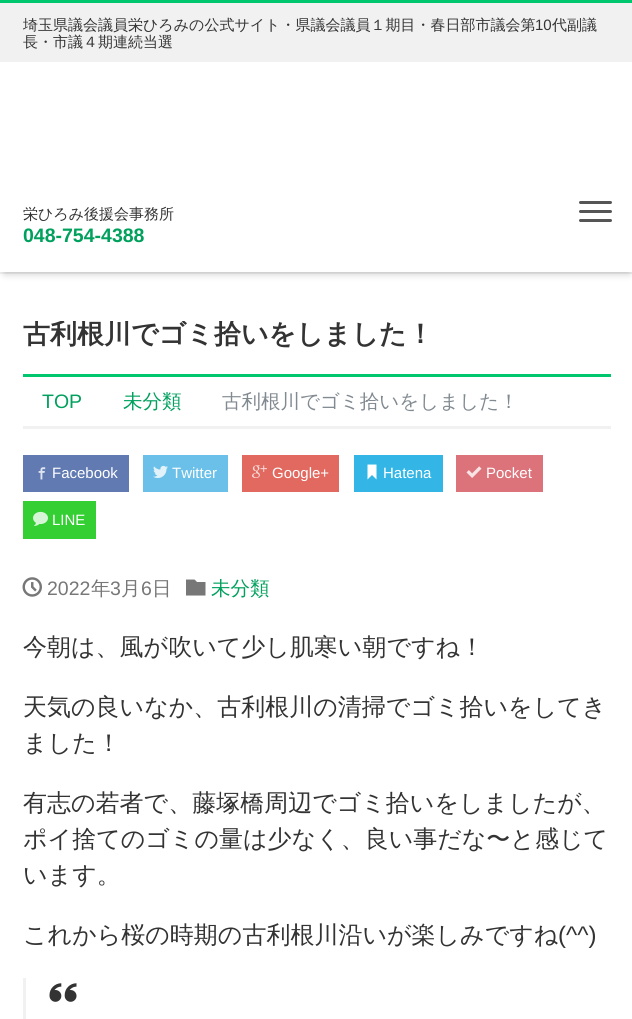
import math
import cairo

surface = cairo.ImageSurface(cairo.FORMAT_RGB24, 632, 1019)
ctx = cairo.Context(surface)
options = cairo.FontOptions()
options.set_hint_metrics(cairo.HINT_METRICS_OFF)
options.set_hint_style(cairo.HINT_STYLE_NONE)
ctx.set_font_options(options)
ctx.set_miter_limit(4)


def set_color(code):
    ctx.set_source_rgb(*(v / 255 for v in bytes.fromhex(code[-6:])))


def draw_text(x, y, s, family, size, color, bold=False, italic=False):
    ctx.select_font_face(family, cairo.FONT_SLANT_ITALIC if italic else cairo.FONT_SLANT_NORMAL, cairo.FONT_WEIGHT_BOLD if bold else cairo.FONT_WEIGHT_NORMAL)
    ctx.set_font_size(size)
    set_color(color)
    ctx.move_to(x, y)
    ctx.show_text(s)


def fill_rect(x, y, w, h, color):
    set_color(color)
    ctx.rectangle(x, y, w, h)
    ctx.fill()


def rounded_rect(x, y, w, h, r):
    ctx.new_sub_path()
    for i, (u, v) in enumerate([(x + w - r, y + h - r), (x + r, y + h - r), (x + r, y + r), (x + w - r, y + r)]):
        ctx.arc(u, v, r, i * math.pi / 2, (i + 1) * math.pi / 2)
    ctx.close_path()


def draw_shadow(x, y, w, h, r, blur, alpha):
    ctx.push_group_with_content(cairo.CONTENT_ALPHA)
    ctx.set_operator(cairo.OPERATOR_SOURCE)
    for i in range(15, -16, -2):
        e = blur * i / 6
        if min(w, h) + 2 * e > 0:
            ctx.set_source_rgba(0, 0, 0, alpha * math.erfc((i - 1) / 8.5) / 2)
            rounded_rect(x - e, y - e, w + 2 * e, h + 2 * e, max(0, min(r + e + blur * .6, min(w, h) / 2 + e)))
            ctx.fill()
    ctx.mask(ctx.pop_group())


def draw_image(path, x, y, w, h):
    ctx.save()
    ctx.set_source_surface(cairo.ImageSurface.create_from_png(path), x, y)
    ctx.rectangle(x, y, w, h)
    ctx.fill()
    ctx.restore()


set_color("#ffffff")
ctx.paint()
ctx.save()
ctx.set_fill_rule(cairo.FILL_RULE_EVEN_ODD)
ctx.new_path()
ctx.move_to(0, 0)
ctx.line_to(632, 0)
ctx.line_to(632, 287)
ctx.line_to(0, 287)
ctx.close_path()
ctx.move_to(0, 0)
ctx.line_to(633, 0)
ctx.line_to(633, 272)
ctx.line_to(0, 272)
ctx.close_path()
ctx.clip()
set_color("#000000")
draw_shadow(5, 9, 624, 263, 0, 4.5, 0.3)
ctx.restore()
fill_rect(0, 0, 632, 3, "#00c66d")
fill_rect(0, 3, 632, 59, "#f1f1f1")
draw_text(23, 30, "埼玉県議会議員栄ひろみの公式サイト・県議会議員１期目・春日部市議会第", "WenQuanYi Zen Hei Medium", 15, "#333333")
draw_text(535, 30, "10", "Liberation Sans", 15, "#333333")
draw_text(552, 30, "代副議", "WenQuanYi Zen Hei Medium", 15, "#333333")
draw_text(23, 47, "長・市議４期連続当選", "WenQuanYi Zen Hei Medium", 15, "#333333")
draw_text(23, 219, "栄ひろみ後援会事務所", "WenQuanYi Zen Hei Medium", 15, "#333333")
draw_text(23, 242, "048-754-4388", "Liberation Sans", 19.5, "#00a05d", bold=True)
ctx.set_source_rgba(0.467, 0.467, 0.467, 0.1)
ctx.rectangle(0, 272, 632, 2)
ctx.fill()
set_color("#555555")
rounded_rect(579, 201, 33, 3, 1.5)
ctx.fill()
rounded_rect(579, 210, 33, 3, 1.5)
ctx.fill()
rounded_rect(579, 219, 33, 3, 1.5)
ctx.fill()
ctx.save()
ctx.rectangle(0, 321, 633, 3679)
ctx.clip()
draw_text(23, 343, "古利根川でゴミ拾いをしました！", "WenQuanYi Zen Hei", 27, "#333333", bold=True)
ctx.restore()
fill_rect(23, 374, 588, 3, "#00c66d")
fill_rect(23, 426, 588, 3, "#f1f1f1")
draw_text(42, 408, "TOP", "Liberation Sans", 19.5, "#00a05d")
draw_text(123, 408, "未分類", "WenQuanYi Zen Hei Medium", 19.5, "#00a05d")
draw_text(222, 408, "古利根川でゴミ拾いをしました！", "WenQuanYi Zen Hei Medium", 19.5, "#818a91")
fill_rect(23, 455, 106, 37, "#617ab2")
draw_image("assets/img1.png", 38, 467, 8, 13)
draw_text(52, 478, "Facebook", "Liberation Sans", 15, "#ffffff")
fill_rect(143, 455, 85, 37, "#6ac0e9")
draw_image("assets/img2.png", 153, 465, 15, 13)
draw_text(172, 478, "Twitter", "Liberation Sans", 15, "#ffffff")
fill_rect(242, 455, 97, 37, "#e2695f")
draw_image("assets/img3.png", 252, 465, 15, 13)
draw_text(272, 478, "Google+", "Liberation Sans", 15, "#ffffff")
fill_rect(354, 455, 89, 37, "#33b6e5")
set_color("#ffffff")
ctx.new_path()
ctx.move_to(367.5, 464.5)
ctx.line_to(367.5, 479.5)
ctx.line_to(372, 475)
ctx.line_to(376.5, 479.5)
ctx.line_to(376.5, 464.5)
ctx.close_path()
ctx.fill()
draw_text(383, 478, "Hatena", "Liberation Sans", 15, "#ffffff")
fill_rect(456, 455, 87, 37, "#dc737b")
draw_image("assets/img4.png", 466, 466, 16, 12)
draw_text(486, 478, "Pocket", "Liberation Sans", 15, "#ffffff")
fill_rect(23, 501, 73, 38, "#33cf33")
draw_image("assets/img5.png", 33, 511, 15, 15)
draw_text(52, 525, "LINE", "Liberation Sans", 15, "#ffffff")
draw_image("assets/img6.png", 22, 577, 20, 20)
draw_text(47, 595, "2022", "Liberation Sans", 19.5, "#777777")
draw_text(91, 595, "年", "WenQuanYi Zen Hei Medium", 19.5, "#777777")
draw_text(110, 595, "3", "Liberation Sans", 19.5, "#777777")
draw_text(121, 595, "月", "WenQuanYi Zen Hei Medium", 19.5, "#777777")
draw_text(141, 595, "6", "Liberation Sans", 19.5, "#777777")
draw_text(152, 595, "日", "WenQuanYi Zen Hei Medium", 19.5, "#777777")
draw_text(211, 595, "未分類", "WenQuanYi Zen Hei Medium", 19.5, "#00a05d")
set_color("#777777")
ctx.new_path()
ctx.move_to(194.5, 579.5)
ctx.line_to(197, 582)
ctx.line_to(205.5, 582)
ctx.line_to(205.5, 595.5)
ctx.line_to(186, 595.5)
ctx.line_to(186, 579.5)
ctx.close_path()
ctx.fill()
draw_text(23, 655, "今朝は、風が吹いて少し肌寒い朝ですね！", "WenQuanYi Zen Hei Medium", 24, "#333333")
draw_text(23, 715, "天気の良いなか、古利根川の清掃でゴミ拾いをしてき", "WenQuanYi Zen Hei Medium", 24, "#333333")
draw_text(23, 751, "ました！", "WenQuanYi Zen Hei Medium", 24, "#333333")
draw_text(23, 811, "有志の若者で、藤塚橋周辺でゴミ拾いをしましたが、", "WenQuanYi Zen Hei Medium", 24, "#333333")
draw_text(23, 847, "ポイ捨てのゴミの量は少なく、良い事だな〜と感じて", "WenQuanYi Zen Hei Medium", 24, "#333333")
draw_text(23, 883, "います。", "WenQuanYi Zen Hei Medium", 24, "#333333")
draw_text(23, 943, "これから桜の時期の古利根川沿いが楽しみですね", "WenQuanYi Zen Hei Medium", 24, "#333333")
draw_text(558, 943, "(^^)", "Liberation Sans", 24, "#333333")
fill_rect(23, 978, 3, 41, "#f1f1f1")
draw_image("assets/img7.png", 49, 983, 28, 19)
surface.write_to_png("output.png")
